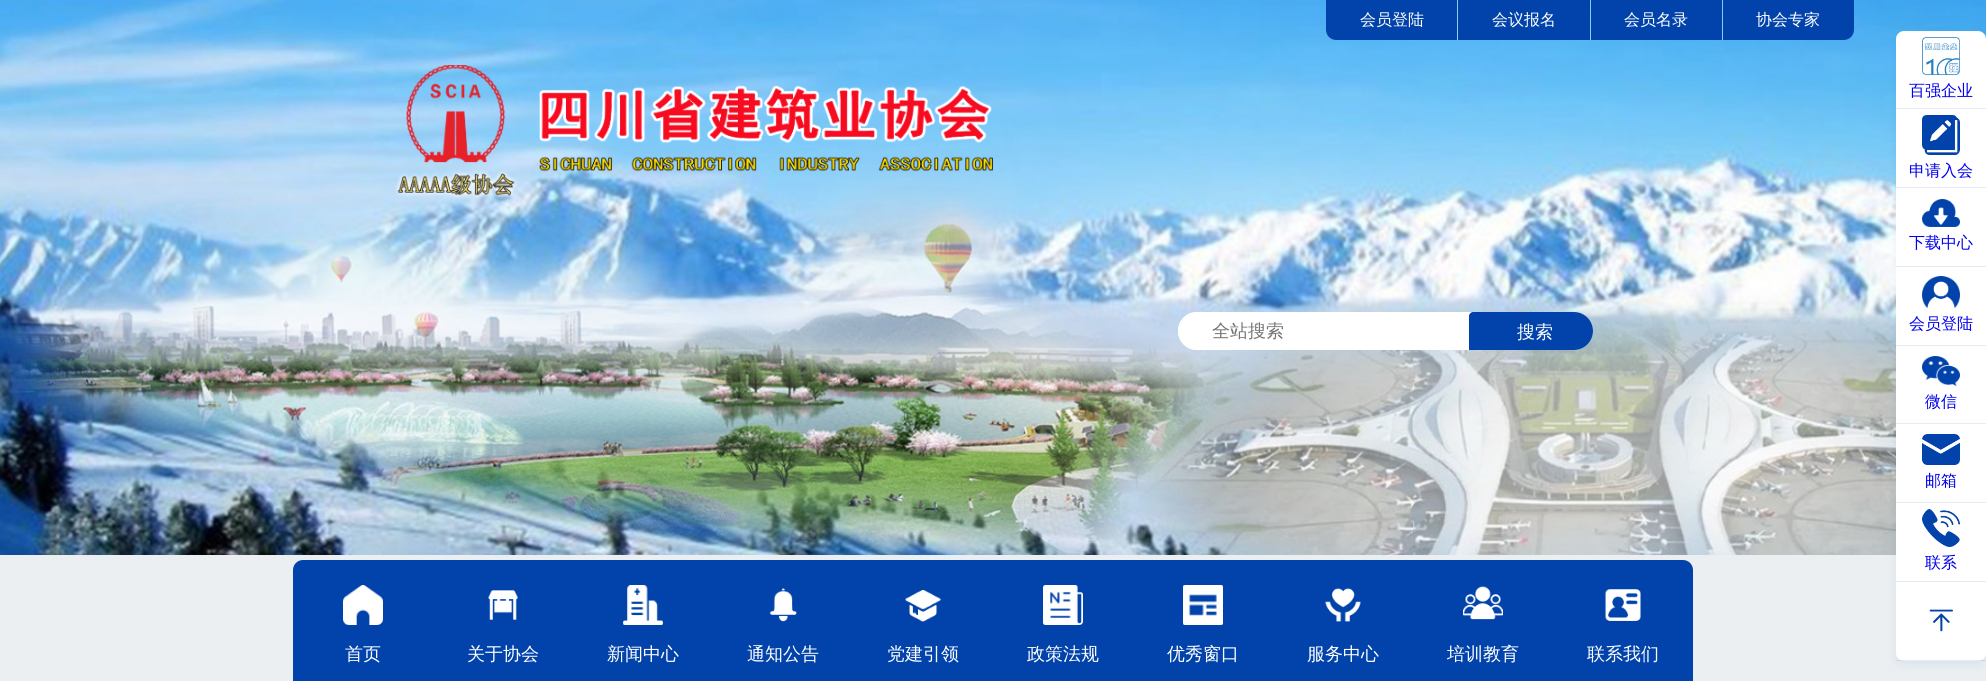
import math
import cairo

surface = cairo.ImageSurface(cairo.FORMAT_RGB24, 1986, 681)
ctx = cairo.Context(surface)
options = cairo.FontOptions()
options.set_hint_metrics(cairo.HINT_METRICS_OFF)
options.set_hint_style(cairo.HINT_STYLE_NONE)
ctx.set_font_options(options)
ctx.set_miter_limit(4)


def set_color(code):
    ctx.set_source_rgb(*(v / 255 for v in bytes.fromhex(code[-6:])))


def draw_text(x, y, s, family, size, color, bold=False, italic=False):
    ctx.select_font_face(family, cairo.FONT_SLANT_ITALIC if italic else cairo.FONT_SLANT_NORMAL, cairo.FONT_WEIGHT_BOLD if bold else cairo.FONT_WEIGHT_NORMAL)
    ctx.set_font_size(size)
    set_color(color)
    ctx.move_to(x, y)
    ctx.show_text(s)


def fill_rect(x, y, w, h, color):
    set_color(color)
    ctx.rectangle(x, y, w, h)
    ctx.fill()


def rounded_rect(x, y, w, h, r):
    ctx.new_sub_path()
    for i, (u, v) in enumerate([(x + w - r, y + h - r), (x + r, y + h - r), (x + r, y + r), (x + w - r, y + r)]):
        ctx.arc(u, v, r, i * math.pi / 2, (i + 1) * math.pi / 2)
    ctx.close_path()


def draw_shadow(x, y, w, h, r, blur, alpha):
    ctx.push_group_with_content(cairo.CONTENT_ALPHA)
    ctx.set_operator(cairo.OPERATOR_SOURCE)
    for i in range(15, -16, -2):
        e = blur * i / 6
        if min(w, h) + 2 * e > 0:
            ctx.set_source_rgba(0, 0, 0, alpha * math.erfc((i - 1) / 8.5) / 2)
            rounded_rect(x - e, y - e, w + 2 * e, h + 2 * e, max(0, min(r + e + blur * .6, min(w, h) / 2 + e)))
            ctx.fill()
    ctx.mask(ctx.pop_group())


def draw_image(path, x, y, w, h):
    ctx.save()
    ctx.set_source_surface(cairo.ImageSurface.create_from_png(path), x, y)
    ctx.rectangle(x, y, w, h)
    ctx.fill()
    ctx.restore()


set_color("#ebeff1")
ctx.paint()
draw_image("assets/img1.png", 0, 0, 1986, 555)
ctx.set_source_rgba(1, 1, 1, 0.36)
ctx.new_path()
ctx.move_to(1326, 0)
ctx.line_to(1854, 0)
ctx.line_to(1854, 30)
ctx.curve_to(1854, 35.5, 1849.5, 40, 1844, 40)
ctx.line_to(1336, 40)
ctx.curve_to(1330.5, 40, 1326, 35.5, 1326, 30)
ctx.close_path()
ctx.fill()
set_color("#0143ab")
ctx.new_path()
ctx.move_to(1326, 0)
ctx.line_to(1457, 0)
ctx.line_to(1457, 40)
ctx.line_to(1336, 40)
ctx.curve_to(1330.5, 40, 1326, 35.5, 1326, 30)
ctx.close_path()
ctx.fill()
draw_text(1360, 25, "会员登陆", "WenQuanYi Zen Hei Medium", 16, "#ffffff")
fill_rect(1458, 0, 132, 40, "#0143ab")
draw_text(1492, 25, "会议报名", "WenQuanYi Zen Hei Medium", 16, "#ffffff")
fill_rect(1591, 0, 131, 40, "#0143ab")
draw_text(1624, 25, "会员名录", "WenQuanYi Zen Hei Medium", 16, "#ffffff")
set_color("#0143ab")
ctx.new_path()
ctx.move_to(1723, 0)
ctx.line_to(1854, 0)
ctx.line_to(1854, 30)
ctx.curve_to(1854, 35.5, 1849.5, 40, 1844, 40)
ctx.line_to(1723, 40)
ctx.close_path()
ctx.fill()
draw_text(1756, 25, "协会专家", "WenQuanYi Zen Hei Medium", 16, "#ffffff")
draw_image("assets/img2.png", 395, 65, 598, 134)
rounded_rect(1178, 312, 415, 38, 19)
ctx.fill()
ctx.new_path()
ctx.move_to(1197, 312)
ctx.line_to(1469, 312)
ctx.line_to(1469, 350)
ctx.line_to(1197, 350)
ctx.curve_to(1186.5, 350, 1178, 341.5, 1178, 331)
ctx.curve_to(1178, 320.5, 1186.5, 312, 1197, 312)
ctx.close_path()
ctx.fill()
draw_text(1212, 337, "全站搜索", "WenQuanYi Zen Hei Medium", 18, "#757575")
set_color("#0143ab")
ctx.new_path()
ctx.move_to(1473, 312)
ctx.line_to(1574, 312)
ctx.curve_to(1584.5, 312, 1593, 320.5, 1593, 331)
ctx.curve_to(1593, 341.5, 1584.5, 350, 1574, 350)
ctx.line_to(1469, 350)
ctx.line_to(1469, 316)
ctx.curve_to(1469, 314, 1471, 312, 1473, 312)
ctx.close_path()
ctx.fill()
draw_text(1517, 338, "搜索", "WenQuanYi Zen Hei Medium", 18, "#ffffff")
set_color("#0143ab")
draw_shadow(1896, 35, 90, 630, 8, 5, 0.08)
set_color("#ffffff")
rounded_rect(1896, 31, 90, 630, 8)
ctx.fill()
fill_rect(1896, 108, 90, 1, "#e6ecf7")
draw_image("assets/img3.png", 1922, 37, 38, 38)
draw_text(1909, 96, "百强企业", "WenQuanYi Zen Hei Medium", 16, "#0000ee")
fill_rect(1896, 187, 90, 1, "#e6ecf7")
draw_image("assets/img4.png", 1922, 115, 38, 40)
draw_text(1909, 176, "申请入会", "WenQuanYi Zen Hei Medium", 16, "#0000ee")
fill_rect(1896, 266, 90, 1, "#e6ecf7")
draw_image("assets/img5.png", 1922, 199, 38, 28)
draw_text(1909, 248, "下载中心", "WenQuanYi Zen Hei Medium", 16, "#0000ee")
fill_rect(1896, 345, 90, 1, "#e6ecf7")
draw_image("assets/img6.png", 1922, 276, 38, 32)
draw_text(1909, 329, "会员登陆", "WenQuanYi Zen Hei Medium", 16, "#0000ee")
fill_rect(1896, 423, 90, 1, "#e6ecf7")
draw_image("assets/img7.png", 1922, 356, 38, 30)
draw_text(1925, 407, "微信", "WenQuanYi Zen Hei Medium", 16, "#0000ee")
fill_rect(1896, 502, 90, 1, "#e6ecf7")
draw_image("assets/img8.png", 1922, 434, 38, 31)
draw_text(1925, 486, "邮箱", "WenQuanYi Zen Hei Medium", 16, "#0000ee")
fill_rect(1896, 581, 90, 1, "#e6ecf7")
draw_image("assets/img9.png", 1922, 509, 38, 38)
draw_text(1925, 568, "联系", "WenQuanYi Zen Hei Medium", 16, "#0000ee")
ctx.set_source_rgba(0.004, 0.263, 0.671, 0.1)
ctx.rectangle(1896, 660, 90, 1)
ctx.fill()
draw_image("assets/img10.png", 1929, 609, 24, 23)
set_color("#0143ab")
rounded_rect(293, 560, 1400, 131, 10)
ctx.fill()
draw_image("assets/img11.png", 343, 585, 40, 40)
draw_text(345, 660, "首页", "WenQuanYi Zen Hei Medium", 18, "#ffffff")
draw_image("assets/img12.png", 488, 590, 30, 30)
draw_text(467, 660, "关于协会", "WenQuanYi Zen Hei Medium", 18, "#ffffff")
draw_image("assets/img13.png", 623, 585, 40, 40)
draw_text(607, 660, "新闻中心", "WenQuanYi Zen Hei Medium", 18, "#ffffff")
draw_image("assets/img14.png", 769, 588, 28, 34)
draw_text(747, 660, "通知公告", "WenQuanYi Zen Hei Medium", 18, "#ffffff")
draw_image("assets/img15.png", 905, 590, 36, 32)
draw_text(887, 660, "党建引领", "WenQuanYi Zen Hei Medium", 18, "#ffffff")
draw_image("assets/img16.png", 1043, 585, 40, 40)
draw_text(1027, 660, "政策法规", "WenQuanYi Zen Hei Medium", 18, "#ffffff")
draw_image("assets/img17.png", 1183, 585, 40, 40)
draw_text(1167, 660, "优秀窗口", "WenQuanYi Zen Hei Medium", 18, "#ffffff")
draw_image("assets/img18.png", 1325, 588, 36, 34)
draw_text(1307, 660, "服务中心", "WenQuanYi Zen Hei Medium", 18, "#ffffff")
draw_image("assets/img19.png", 1463, 586, 40, 34)
draw_text(1447, 660, "培训教育", "WenQuanYi Zen Hei Medium", 18, "#ffffff")
draw_image("assets/img20.png", 1605, 589, 36, 32)
draw_text(1587, 660, "联系我们", "WenQuanYi Zen Hei Medium", 18, "#ffffff")
surface.write_to_png("output.png")
